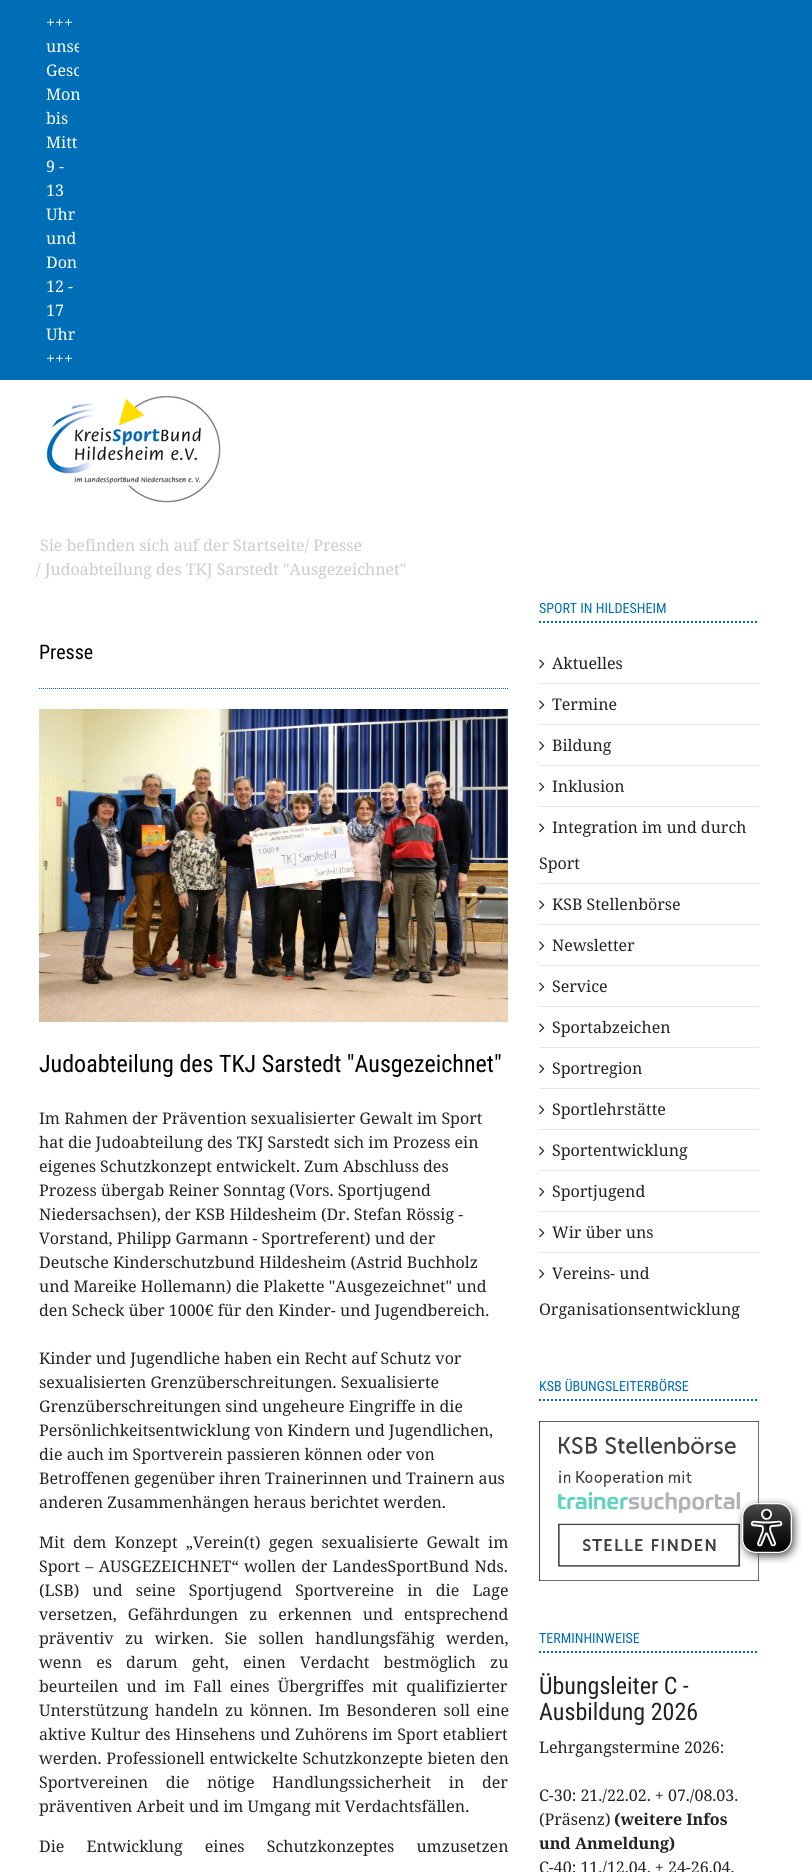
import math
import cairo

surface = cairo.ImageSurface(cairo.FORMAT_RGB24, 812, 1872)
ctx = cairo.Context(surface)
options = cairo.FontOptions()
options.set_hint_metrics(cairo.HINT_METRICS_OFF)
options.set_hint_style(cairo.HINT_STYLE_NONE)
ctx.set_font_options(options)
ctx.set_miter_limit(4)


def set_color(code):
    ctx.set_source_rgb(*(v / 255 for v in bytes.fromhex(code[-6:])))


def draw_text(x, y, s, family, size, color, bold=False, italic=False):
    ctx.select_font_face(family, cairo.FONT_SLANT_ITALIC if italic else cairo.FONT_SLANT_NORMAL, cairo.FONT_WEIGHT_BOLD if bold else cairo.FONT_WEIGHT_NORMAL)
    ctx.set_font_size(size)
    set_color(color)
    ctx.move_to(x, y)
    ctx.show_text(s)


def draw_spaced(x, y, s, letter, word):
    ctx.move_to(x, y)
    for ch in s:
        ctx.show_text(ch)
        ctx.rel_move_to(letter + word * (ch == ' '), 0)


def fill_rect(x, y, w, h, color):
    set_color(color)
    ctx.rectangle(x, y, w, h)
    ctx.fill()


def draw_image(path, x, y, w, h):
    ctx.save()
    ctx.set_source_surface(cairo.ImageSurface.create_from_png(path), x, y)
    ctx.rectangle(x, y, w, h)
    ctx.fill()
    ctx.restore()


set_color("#ffffff")
ctx.paint()
fill_rect(0, 0, 812, 380, "#006eb6")
draw_text(46, 28, "+++", "Noto Serif", 16, "#ffffff")
ctx.save()
ctx.rectangle(46, 10, 33, 360)
ctx.clip()
draw_text(46, 52, "unse", "Noto Serif", 16, "#ffffff")
draw_text(46, 76, "Gesc", "Noto Serif", 16, "#ffffff")
ctx.restore()
draw_text(46, 100, "Mon", "Noto Serif", 16, "#ffffff")
draw_text(46, 124, "bis", "Noto Serif", 16, "#ffffff")
draw_text(46, 148, "Mitt", "Noto Serif", 16, "#ffffff")
draw_text(46, 172, "9 -", "Noto Serif", 16, "#ffffff")
draw_text(46, 196, "13", "Noto Serif", 16, "#ffffff")
draw_text(46, 220, "Uhr", "Noto Serif", 16, "#ffffff")
draw_text(46, 244, "und", "Noto Serif", 16, "#ffffff")
draw_text(46, 268, "Don", "Noto Serif", 16, "#ffffff")
draw_text(46, 292, "12 -", "Noto Serif", 16, "#ffffff")
draw_text(46, 316, "17", "Noto Serif", 16, "#ffffff")
draw_text(46, 340, "Uhr", "Noto Serif", 16, "#ffffff")
draw_text(46, 364, "+++", "Noto Serif", 16, "#ffffff")
draw_image("assets/img1.png", 46, 395, 175, 108)
draw_text(40, 551, "Sie befinden sich auf der Startseite/ Presse", "Noto Serif", 16, "#cccccc")
draw_text(36, 575, "/ Judoabteilung des TKJ Sarstedt \"Ausgezeichnet\"", "Noto Serif", 16, "#cccccc")
ctx.new_path()
ctx.move_to(39, 688.5)
ctx.line_to(509, 688.5)
set_color("#006eb6")
ctx.set_line_width(1)
ctx.set_dash([1, 1])
ctx.stroke()
draw_text(39, 659, "Presse", "Roboto Condensed", 20, "#000000")
draw_image("assets/img2.png", 39, 709, 469, 313)
draw_text(39, 1072, "Judoabteilung des TKJ Sarstedt \"Ausgezeichnet\"", "Roboto Condensed", 24, "#000000")
draw_text(39, 1124, "Im Rahmen der Prävention sexualisierter Gewalt im Sport", "Noto Serif", 16, "#222222")
draw_text(39, 1148, "hat die Judoabteilung des TKJ Sarstedt sich im Prozess ein", "Noto Serif", 16, "#222222")
draw_text(39, 1172, "eigenes Schutzkonzept entwickelt. Zum Abschluss des", "Noto Serif", 16, "#222222")
draw_text(39, 1196, "Prozess übergab Reiner Sonntag (Vors. Sportjugend", "Noto Serif", 16, "#222222")
draw_text(39, 1220, "Niedersachsen), der KSB Hildesheim (Dr. Stefan Rössig -", "Noto Serif", 16, "#222222")
draw_text(39, 1244, "Vorstand, Philipp Garmann - Sportreferent) und der", "Noto Serif", 16, "#222222")
draw_text(39, 1268, "Deutsche Kinderschutzbund Hildesheim (Astrid Buchholz", "Noto Serif", 16, "#222222")
draw_text(39, 1292, "und Mareike Hollemann) die Plakette \"Ausgezeichnet\" und", "Noto Serif", 16, "#222222")
draw_text(39, 1316, "den Scheck über 1000€ für den Kinder- und Jugendbereich.", "Noto Serif", 16, "#222222")
draw_text(39, 1364, "Kinder und Jugendliche haben ein Recht auf Schutz vor", "Noto Serif", 16, "#222222")
draw_text(39, 1388, "sexualisierten Grenzüberschreitungen. Sexualisierte", "Noto Serif", 16, "#222222")
draw_text(39, 1412, "Grenzüberschreitungen sind ungeheure Eingriffe in die", "Noto Serif", 16, "#222222")
draw_text(39, 1436, "Persönlichkeitsentwicklung von Kindern und Jugendlichen,", "Noto Serif", 16, "#222222")
draw_text(39, 1460, "die auch im Sportverein passieren können oder von", "Noto Serif", 16, "#222222")
draw_text(39, 1484, "Betroffenen gegenüber ihren Trainerinnen und Trainern aus", "Noto Serif", 16, "#222222")
draw_text(39, 1508, "anderen Zusammenhängen heraus berichtet werden.", "Noto Serif", 16, "#222222")
draw_spaced(39, 1548, "Mit dem Konzept „Verein(t) gegen sexualisierte Gewalt im", 0, 4)
draw_spaced(39, 1572, "Sport – AUSGEZEICHNET“ wollen der LandesSportBund Nds.", 0, 1.25)
draw_spaced(39, 1596, "(LSB) und seine Sportjugend Sportvereine in die Lage", 0, 9)
draw_spaced(39, 1620, "versetzen, Gefährdungen zu erkennen und entsprechend", 0, 6.75)
draw_spaced(39, 1644, "präventiv zu wirken. Sie sollen handlungsfähig werden,", 0, 7.25)
draw_spaced(39, 1668, "wenn es darum geht, einen Verdacht bestmöglich zu", 0, 10)
draw_spaced(39, 1692, "beurteilen und im Fall eines Übergriffes mit qualifizierter", 0, 4)
draw_spaced(39, 1716, "Unterstützung handeln zu können. Im Besonderen soll eine", 0, 2.5)
draw_spaced(39, 1740, "aktive Kultur des Hinsehens und Zuhörens im Sport etabliert", 0, 0.5)
draw_spaced(39, 1764, "werden. Professionell entwickelte Schutzkonzepte bieten den", 0, 0.5)
draw_spaced(39, 1788, "Sportvereinen die nötige Handlungssicherheit in der", 0, 13.5)
draw_text(39, 1812, "präventiven Arbeit und im Umgang mit Verdachtsfällen.", "Noto Serif", 16, "#222222")
draw_spaced(39, 1852, "Die Entwicklung eines Schutzkonzeptes umzusetzen", 0, 18)
ctx.new_path()
ctx.move_to(539, 622)
ctx.line_to(759, 622)
set_color("#006eb6")
ctx.set_line_width(2)
ctx.set_dash([2, 2])
ctx.stroke()
draw_text(539, 613, "SPORT IN HILDESHEIM", "Roboto Condensed", 14, "#006eb6")
fill_rect(539, 683, 220, 1, "#e8e8e8")
draw_image("assets/img3.png", 539, 659, 6, 10)
draw_text(552, 669, "Aktuelles", "Noto Serif", 16, "#222222")
fill_rect(539, 724, 220, 1, "#e8e8e8")
draw_image("assets/img3.png", 539, 700, 6, 10)
draw_text(552, 710, "Termine", "Noto Serif", 16, "#222222")
fill_rect(539, 765, 220, 1, "#e8e8e8")
draw_image("assets/img3.png", 539, 741, 6, 10)
draw_text(552, 751, "Bildung", "Noto Serif", 16, "#222222")
fill_rect(539, 806, 220, 1, "#e8e8e8")
draw_image("assets/img3.png", 539, 782, 6, 10)
draw_text(552, 792, "Inklusion", "Noto Serif", 16, "#222222")
fill_rect(539, 883, 220, 1, "#e8e8e8")
draw_image("assets/img3.png", 539, 823, 6, 10)
draw_text(552, 833, "Integration im und durch", "Noto Serif", 16, "#222222")
draw_text(539, 869, "Sport", "Noto Serif", 16, "#222222")
fill_rect(539, 924, 220, 1, "#e8e8e8")
draw_image("assets/img3.png", 539, 900, 6, 10)
draw_text(552, 910, "KSB Stellenbörse", "Noto Serif", 16, "#222222")
fill_rect(539, 965, 220, 1, "#e8e8e8")
draw_image("assets/img3.png", 539, 941, 6, 10)
draw_text(552, 951, "Newsletter", "Noto Serif", 16, "#222222")
fill_rect(539, 1006, 220, 1, "#e8e8e8")
draw_image("assets/img3.png", 539, 982, 6, 10)
draw_text(552, 992, "Service", "Noto Serif", 16, "#222222")
fill_rect(539, 1047, 220, 1, "#e8e8e8")
draw_image("assets/img3.png", 539, 1023, 6, 10)
draw_text(552, 1033, "Sportabzeichen", "Noto Serif", 16, "#222222")
fill_rect(539, 1088, 220, 1, "#e8e8e8")
draw_image("assets/img3.png", 539, 1064, 6, 10)
draw_text(552, 1074, "Sportregion", "Noto Serif", 16, "#222222")
fill_rect(539, 1129, 220, 1, "#e8e8e8")
draw_image("assets/img3.png", 539, 1105, 6, 10)
draw_text(552, 1115, "Sportlehrstätte", "Noto Serif", 16, "#222222")
fill_rect(539, 1170, 220, 1, "#e8e8e8")
draw_image("assets/img3.png", 539, 1146, 6, 10)
draw_text(552, 1156, "Sportentwicklung", "Noto Serif", 16, "#222222")
fill_rect(539, 1211, 220, 1, "#e8e8e8")
draw_image("assets/img3.png", 539, 1187, 6, 10)
draw_text(552, 1197, "Sportjugend", "Noto Serif", 16, "#222222")
fill_rect(539, 1252, 220, 1, "#e8e8e8")
draw_image("assets/img3.png", 539, 1228, 6, 10)
draw_text(552, 1238, "Wir über uns", "Noto Serif", 16, "#222222")
draw_image("assets/img3.png", 539, 1269, 6, 10)
draw_text(552, 1279, "Vereins- und", "Noto Serif", 16, "#222222")
draw_text(539, 1315, "Organisationsentwicklung", "Noto Serif", 16, "#222222")
ctx.new_path()
ctx.move_to(539, 1400)
ctx.line_to(759, 1400)
set_color("#006eb6")
ctx.stroke()
draw_text(539, 1391, "KSB ÜBUNGSLEITERBÖRSE", "Roboto Condensed", 14, "#006eb6")
draw_image("assets/img4.png", 539, 1421, 220, 160)
ctx.new_path()
ctx.move_to(539, 1652)
ctx.line_to(759, 1652)
ctx.stroke()
draw_text(539, 1643, "TERMINHINWEISE", "Roboto Condensed", 14, "#006eb6")
draw_text(539, 1694, "Übungsleiter C -", "Roboto Condensed", 24, "#222222")
draw_text(539, 1720, "Ausbildung 2026", "Roboto Condensed", 24, "#222222")
draw_text(539, 1753, "Lehrgangstermine 2026:", "Noto Serif", 16, "#222222")
draw_text(539, 1801, "C-30: 21./22.02. + 07./08.03.", "Noto Serif", 16, "#222222")
draw_text(539, 1825, "(Präsenz)", "Noto Serif", 16, "#222222")
draw_text(614, 1825, "(weitere Infos", "Noto Serif", 16, "#222222", bold=True)
draw_text(539, 1849, "und Anmeldung)", "Noto Serif", 16, "#222222", bold=True)
draw_text(539, 1873, "C-40: 11./12.04. + 24-26.04.", "Noto Serif", 16, "#222222")
draw_image("assets/img5.png", 736, 1498, 66, 66)
surface.write_to_png("output.png")
